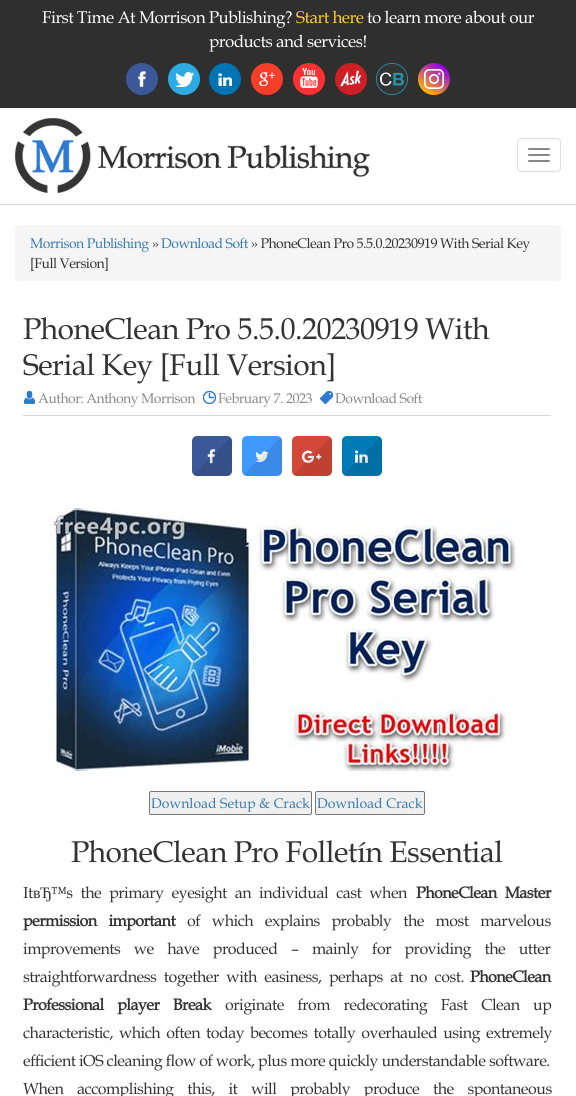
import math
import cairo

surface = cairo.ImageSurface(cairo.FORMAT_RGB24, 576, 1096)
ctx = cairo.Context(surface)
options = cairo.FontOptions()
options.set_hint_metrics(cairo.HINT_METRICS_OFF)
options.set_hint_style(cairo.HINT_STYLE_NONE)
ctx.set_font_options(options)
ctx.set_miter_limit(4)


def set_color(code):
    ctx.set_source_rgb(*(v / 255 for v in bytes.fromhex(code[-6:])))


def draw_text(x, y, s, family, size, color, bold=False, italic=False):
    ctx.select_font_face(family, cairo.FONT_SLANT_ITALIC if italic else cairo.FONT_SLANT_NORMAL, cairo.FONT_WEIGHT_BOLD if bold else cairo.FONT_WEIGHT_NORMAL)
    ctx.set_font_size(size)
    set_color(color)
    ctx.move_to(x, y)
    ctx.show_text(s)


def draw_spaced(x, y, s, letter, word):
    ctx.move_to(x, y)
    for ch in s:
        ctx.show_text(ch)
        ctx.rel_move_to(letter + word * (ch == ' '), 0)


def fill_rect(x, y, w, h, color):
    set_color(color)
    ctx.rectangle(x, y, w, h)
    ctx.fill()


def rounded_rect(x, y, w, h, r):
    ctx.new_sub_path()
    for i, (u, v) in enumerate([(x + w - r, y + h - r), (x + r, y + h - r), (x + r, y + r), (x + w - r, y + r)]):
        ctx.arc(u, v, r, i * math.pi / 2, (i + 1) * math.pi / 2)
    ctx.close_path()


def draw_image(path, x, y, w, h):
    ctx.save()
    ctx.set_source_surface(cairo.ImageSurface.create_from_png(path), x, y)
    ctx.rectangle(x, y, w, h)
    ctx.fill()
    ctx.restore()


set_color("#ffffff")
ctx.paint()
fill_rect(0, 0, 576, 108, "#2f2f2f")
ctx.select_font_face("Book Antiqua")
ctx.set_font_size(17)
set_color("#ffffff")
draw_spaced(42, 23, "First Time At Morrison Publishing?", -0.5, 0)
set_color("#ffcc32")
draw_spaced(296, 23, "Start here", -0.5, 0)
set_color("#ffffff")
draw_spaced(367, 23, "to learn more about our", -0.5, 0)
draw_spaced(209, 47, "products and services!", -0.5, 0)
draw_image("assets/img1.png", 126, 63, 32, 32)
draw_image("assets/img2.png", 168, 63, 32, 32)
draw_image("assets/img3.png", 209, 63, 32, 32)
draw_image("assets/img4.png", 251, 63, 32, 32)
draw_image("assets/img5.png", 293, 63, 32, 32)
draw_image("assets/img6.png", 335, 63, 32, 32)
ctx.arc(392, 79, 15.5, 0, 2 * math.pi)
set_color("#2892a7")
ctx.set_line_width(1)
ctx.stroke()
draw_image("assets/img7.png", 377, 64, 30, 30)
draw_image("assets/img8.png", 418, 63, 32, 32)
draw_image("assets/img9.png", 15, 118, 355, 75)
rounded_rect(517.5, 138.5, 43, 33, 3.5)
set_color("#dddddd")
ctx.stroke()
set_color("#888888")
rounded_rect(528, 148, 22, 2, 1)
ctx.fill()
rounded_rect(528, 154, 22, 2, 1)
ctx.fill()
rounded_rect(528, 160, 22, 2, 1)
ctx.fill()
fill_rect(0, 204, 576, 1, "#d8d8d8")
set_color("#f5f5f5")
rounded_rect(15, 225, 546, 56, 4)
ctx.fill()
ctx.set_font_size(14)
set_color("#337ab7")
draw_spaced(30, 248, "Morrison Publishing", -0.5, 0)
set_color("#333333")
draw_spaced(152, 248, "»", -0.5, 0)
set_color("#337ab7")
draw_spaced(161, 248, "Download Soft", -0.5, 0)
set_color("#333333")
draw_spaced(251, 248, "» PhoneClean Pro 5.5.0.20230919 With Serial Key", -0.5, 0)
draw_spaced(30, 268, "[Full Version]", -0.5, 0)
ctx.set_font_size(30)
draw_spaced(23, 339, "PhoneClean Pro 5.5.0.20230919 With", -0.5, 0)
draw_spaced(23, 375, "Serial Key [Full Version]", -0.5, 0)
fill_rect(23, 415, 528, 1, "#d8d8d8")
draw_image("assets/img10.png", 24, 391, 11, 13)
ctx.set_font_size(14)
set_color("#888888")
draw_spaced(38, 403, "Author: Anthony Morrison", -0.5, 0)
draw_image("assets/img11.png", 203, 391, 13, 13)
draw_spaced(218, 403, "February 7. 2023", -0.5, 0)
draw_image("assets/img12.png", 320, 391, 13, 13)
draw_spaced(335, 403, "Download Soft", -0.5, 0)
set_color("#3b5998")
rounded_rect(192, 436, 40, 40, 5)
ctx.fill()
ctx.new_path()
ctx.move_to(230, 438)
ctx.curve_to(232, 440, 231, 444, 231, 446)
ctx.line_to(231, 456)
ctx.curve_to(231, 478.5, 234.5, 475, 212, 475)
ctx.line_to(202, 475)
ctx.curve_to(200, 475, 196, 476, 194, 474)
ctx.set_source_rgba(0, 0, 0, 0.1)
ctx.set_line_width(2)
ctx.stroke()
draw_image("assets/img13.png", 207, 449, 9, 15)
ctx.new_path()
ctx.move_to(195, 473)
ctx.line_to(229, 439)
ctx.curve_to(229.5, 439.5, 230, 440, 230, 441)
ctx.line_to(230, 471)
ctx.curve_to(230, 472.5, 228.5, 474, 227, 474)
ctx.line_to(197, 474)
ctx.curve_to(196, 474, 195.5, 473.5, 195, 473)
ctx.close_path()
ctx.fill()
set_color("#4099ff")
rounded_rect(242, 436, 40, 40, 5)
ctx.fill()
ctx.new_path()
ctx.move_to(280, 438)
ctx.curve_to(282, 440, 281, 444, 281, 446)
ctx.line_to(281, 456)
ctx.curve_to(281, 478.5, 284.5, 475, 262, 475)
ctx.line_to(252, 475)
ctx.curve_to(250, 475, 246, 476, 244, 474)
ctx.set_source_rgba(0, 0, 0, 0.1)
ctx.stroke()
draw_image("assets/img14.png", 255, 451, 14, 12)
ctx.new_path()
ctx.move_to(245, 473)
ctx.line_to(279, 439)
ctx.curve_to(279.5, 439.5, 280, 440, 280, 441)
ctx.line_to(280, 471)
ctx.curve_to(280, 472.5, 278.5, 474, 277, 474)
ctx.line_to(247, 474)
ctx.curve_to(246, 474, 245.5, 473.5, 245, 473)
ctx.close_path()
ctx.fill()
set_color("#d34836")
rounded_rect(292, 436, 40, 40, 5)
ctx.fill()
ctx.new_path()
ctx.move_to(330, 438)
ctx.curve_to(332, 440, 331, 444, 331, 446)
ctx.line_to(331, 456)
ctx.curve_to(331, 478.5, 334.5, 475, 312, 475)
ctx.line_to(302, 475)
ctx.curve_to(300, 475, 296, 476, 294, 474)
ctx.set_source_rgba(0, 0, 0, 0.1)
ctx.stroke()
draw_image("assets/img15.png", 302, 450, 20, 13)
ctx.new_path()
ctx.move_to(295, 473)
ctx.line_to(329, 439)
ctx.curve_to(329.5, 439.5, 330, 440, 330, 441)
ctx.line_to(330, 471)
ctx.curve_to(330, 472.5, 328.5, 474, 327, 474)
ctx.line_to(297, 474)
ctx.curve_to(296, 474, 295.5, 473.5, 295, 473)
ctx.close_path()
ctx.fill()
set_color("#007bb6")
rounded_rect(342, 436, 40, 40, 5)
ctx.fill()
ctx.new_path()
ctx.move_to(380, 438)
ctx.curve_to(382, 440, 381, 444, 381, 446)
ctx.line_to(381, 456)
ctx.curve_to(381, 478.5, 384.5, 475, 362, 475)
ctx.line_to(352, 475)
ctx.curve_to(350, 475, 346, 476, 344, 474)
ctx.set_source_rgba(0, 0, 0, 0.1)
ctx.stroke()
draw_image("assets/img16.png", 355, 450, 13, 13)
ctx.new_path()
ctx.move_to(345, 473)
ctx.line_to(379, 439)
ctx.curve_to(379.5, 439.5, 380, 440, 380, 441)
ctx.line_to(380, 471)
ctx.curve_to(380, 472.5, 378.5, 474, 377, 474)
ctx.line_to(347, 474)
ctx.curve_to(346, 474, 345.5, 473.5, 345, 473)
ctx.close_path()
ctx.fill()
draw_image("assets/img17.png", 50, 508, 466, 263)
set_color("#efefef")
rounded_rect(149.5, 791.5, 162, 23, 1.5)
ctx.fill_preserve()
set_color("#767676")
ctx.set_line_width(1)
ctx.stroke()
draw_text(151, 808, "Download Setup & Crack", "Book Antiqua", 14, "#337ab7")
set_color("#efefef")
rounded_rect(315.5, 791.5, 109, 23, 1.5)
ctx.fill_preserve()
set_color("#767676")
ctx.stroke()
draw_text(317, 808, "Download Crack", "Book Antiqua", 14, "#337ab7")
ctx.set_font_size(30)
set_color("#333333")
draw_spaced(71, 862, "PhoneClean Pro Folletín Essential", -0.5, 0)
ctx.set_font_size(16)
draw_spaced(23, 898, "It", -0.5, 0)
ctx.select_font_face("Liberation Serif")
draw_spaced(33, 898, "вЂ", -0.5, 0)
ctx.select_font_face("Book Antiqua")
draw_spaced(51, 898, "™s the primary eyesight an individual cast when", -0.5, 4.5)
ctx.select_font_face("Book Antiqua", cairo.FONT_SLANT_NORMAL, cairo.FONT_WEIGHT_BOLD)
draw_spaced(416, 898, "PhoneClean Master", -0.5, 4.5)
draw_spaced(23, 926, "permission important", -0.5, 8.25)
ctx.select_font_face("Book Antiqua")
draw_spaced(187, 926, "of which explains probably the most marvelous", -0.5, 8.25)
draw_spaced(23, 954, "improvements we have produced – mainly for providing the utter", -0.5, 10)
draw_spaced(23, 982, "straightforwardness together with easiness, perhaps at no cost.", -0.5, 4)
ctx.select_font_face("Book Antiqua", cairo.FONT_SLANT_NORMAL, cairo.FONT_WEIGHT_BOLD)
draw_spaced(470, 982, "PhoneClean", -0.5, 0)
draw_spaced(23, 1010, "Professional player Break", -0.5, 10)
ctx.select_font_face("Book Antiqua")
draw_spaced(225, 1010, "originate from redecorating Fast Clean up", -0.5, 10)
draw_spaced(23, 1038, "characteristic, which often today becomes totally overhauled using extremely", -0.5, 2.5)
draw_spaced(23, 1066, "efficient iOS cleaning flow of work, plus more quickly understandable software.", -0.5, 0)
draw_spaced(23, 1094, "When accomplishing this, it will probably produce the spontaneous", -0.5, 10.25)
surface.write_to_png("output.png")
